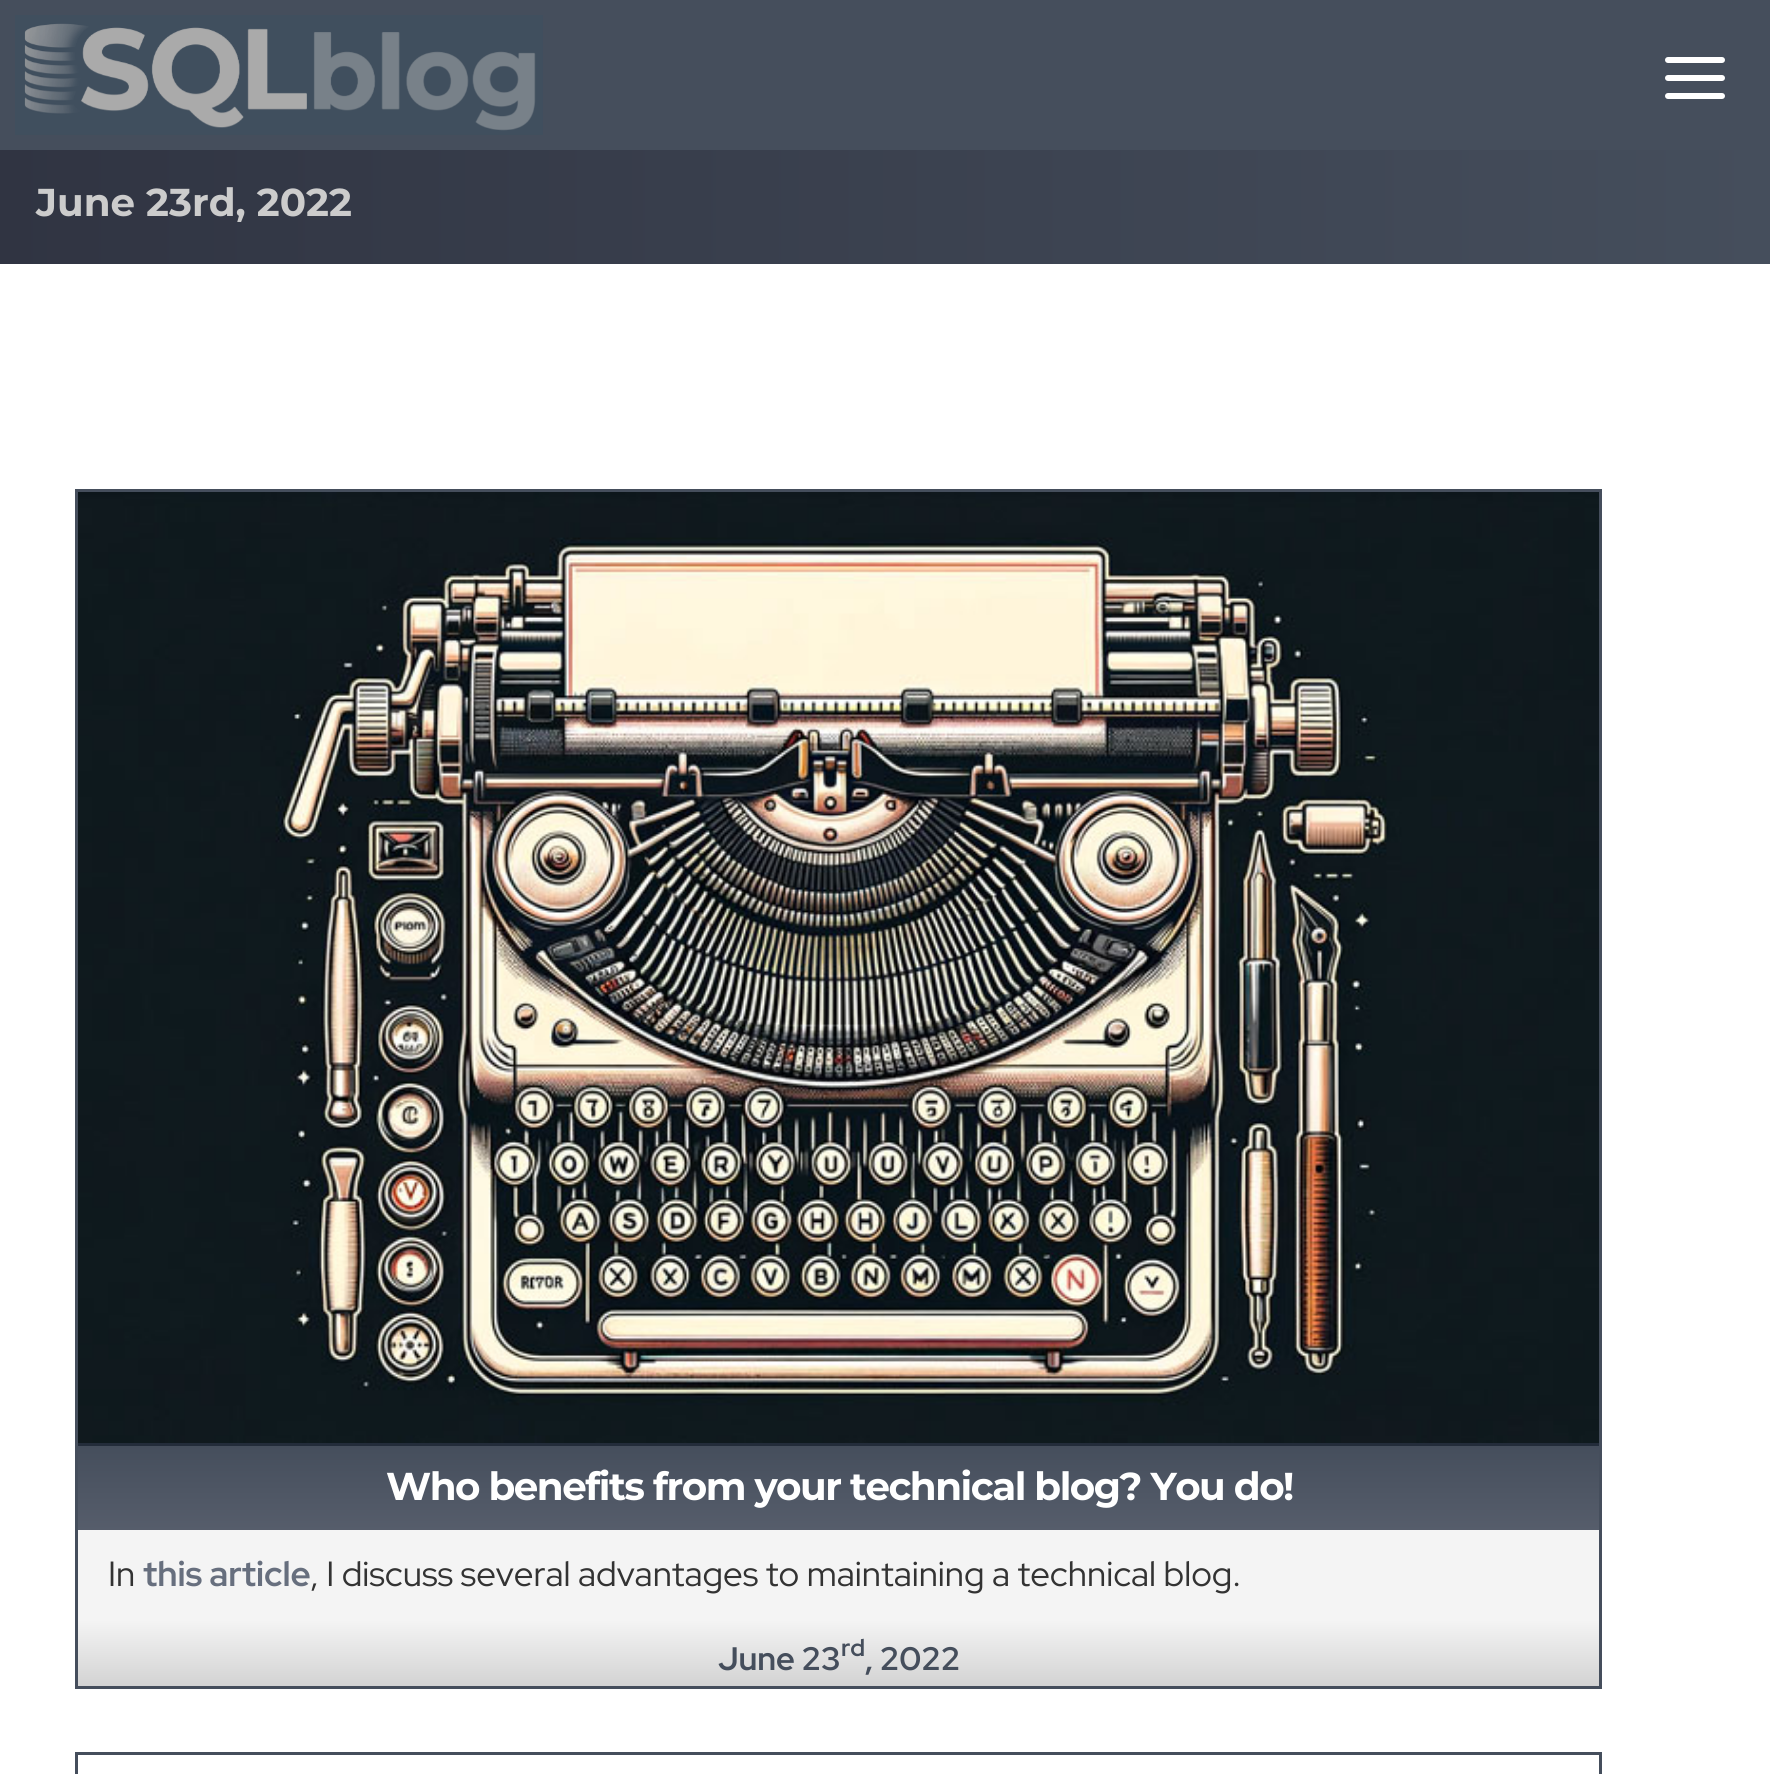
import math
import cairo

surface = cairo.ImageSurface(cairo.FORMAT_RGB24, 1770, 1774)
ctx = cairo.Context(surface)
options = cairo.FontOptions()
options.set_hint_metrics(cairo.HINT_METRICS_OFF)
options.set_hint_style(cairo.HINT_STYLE_NONE)
ctx.set_font_options(options)
ctx.set_miter_limit(4)


def set_color(code):
    ctx.set_source_rgb(*(v / 255 for v in bytes.fromhex(code[-6:])))


def draw_text(x, y, s, family, size, color, bold=False, italic=False):
    ctx.select_font_face(family, cairo.FONT_SLANT_ITALIC if italic else cairo.FONT_SLANT_NORMAL, cairo.FONT_WEIGHT_BOLD if bold else cairo.FONT_WEIGHT_NORMAL)
    ctx.set_font_size(size)
    set_color(color)
    ctx.move_to(x, y)
    ctx.show_text(s)


def draw_spaced(x, y, s, letter, word):
    ctx.move_to(x, y)
    for ch in s:
        ctx.show_text(ch)
        ctx.rel_move_to(letter + word * (ch == ' '), 0)


def fill_rect(x, y, w, h, color):
    set_color(color)
    ctx.rectangle(x, y, w, h)
    ctx.fill()


def rounded_rect(x, y, w, h, r):
    ctx.new_sub_path()
    for i, (u, v) in enumerate([(x + w - r, y + h - r), (x + r, y + h - r), (x + r, y + r), (x + w - r, y + r)]):
        ctx.arc(u, v, r, i * math.pi / 2, (i + 1) * math.pi / 2)
    ctx.close_path()


def draw_image(path, x, y, w, h):
    ctx.save()
    ctx.set_source_surface(cairo.ImageSurface.create_from_png(path), x, y)
    ctx.rectangle(x, y, w, h)
    ctx.fill()
    ctx.restore()


set_color("#ffffff")
ctx.paint()
fill_rect(0, 0, 1770, 150, "#454e5c")
draw_image("assets/img1.png", 15, 15, 528, 120)
set_color("#ffffff")
rounded_rect(1665, 57, 60, 6, 3)
ctx.fill()
rounded_rect(1665, 75, 60, 6, 3)
ctx.fill()
rounded_rect(1665, 93, 60, 6, 3)
ctx.fill()
gradient = cairo.LinearGradient(0, 201, 1770, 201)
gradient.add_color_stop_rgba(0, 0.188, 0.204, 0.259, 1)
gradient.add_color_stop_rgba(1, 0.271, 0.306, 0.361, 1)
ctx.set_source(gradient)
ctx.rectangle(0, 150, 1770, 114)
ctx.fill()
draw_text(36, 216, "June 23rd, 2022", "Montserrat", 38.85, "#cccccc", bold=True)
ctx.rectangle(76.5, 490.5, 1524, 1197)
set_color("#454e5c")
ctx.set_line_width(3)
ctx.stroke()
fill_rect(78, 1530, 1521, 90, "#f4f4f4")
draw_image("assets/img2.png", 78, 492, 1521, 951)
gradient = cairo.LinearGradient(839, 1446, 839, 1530)
gradient.add_color_stop_rgba(0, 0.271, 0.306, 0.361, 1)
gradient.add_color_stop_rgba(1, 0.337, 0.365, 0.42, 1)
ctx.set_source(gradient)
ctx.rectangle(78, 1446, 1521, 84)
ctx.fill()
fill_rect(78, 1443, 1521, 3, "#232c3a")
set_color("#ffffff")
draw_spaced(386, 1500, "Who benefits from your technical blog? You do!", -1.5, 0)
draw_text(108, 1586, "In", "Red Hat Display", 34.95, "#333333")
draw_text(143, 1586, "this article", "Red Hat Display", 34.95, "#676f7e", bold=True)
ctx.select_font_face("Red Hat Display")
set_color("#333333")
draw_spaced(310, 1586, ", I discuss several advantages to maintaining a technical blog.", 0, -0.1)
gradient = cairo.LinearGradient(839, 1620, 839, 1686)
gradient.add_color_stop_rgba(0, 0.957, 0.957, 0.957, 1)
gradient.add_color_stop_rgba(1, 0.827, 0.827, 0.827, 1)
ctx.set_source(gradient)
ctx.rectangle(78, 1620, 1521, 66)
ctx.fill()
draw_text(718, 1670, "June 23", "Red Hat Display", 32.5, "#454e5c", bold=True)
draw_text(841, 1656, "rd", "Red Hat Display", 24, "#454e5c", bold=True)
draw_text(865, 1670, ", 2022", "Red Hat Display", 32.5, "#454e5c", bold=True)
ctx.rectangle(76.5, 1753.5, 1524, 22)
ctx.stroke()
surface.write_to_png("output.png")
